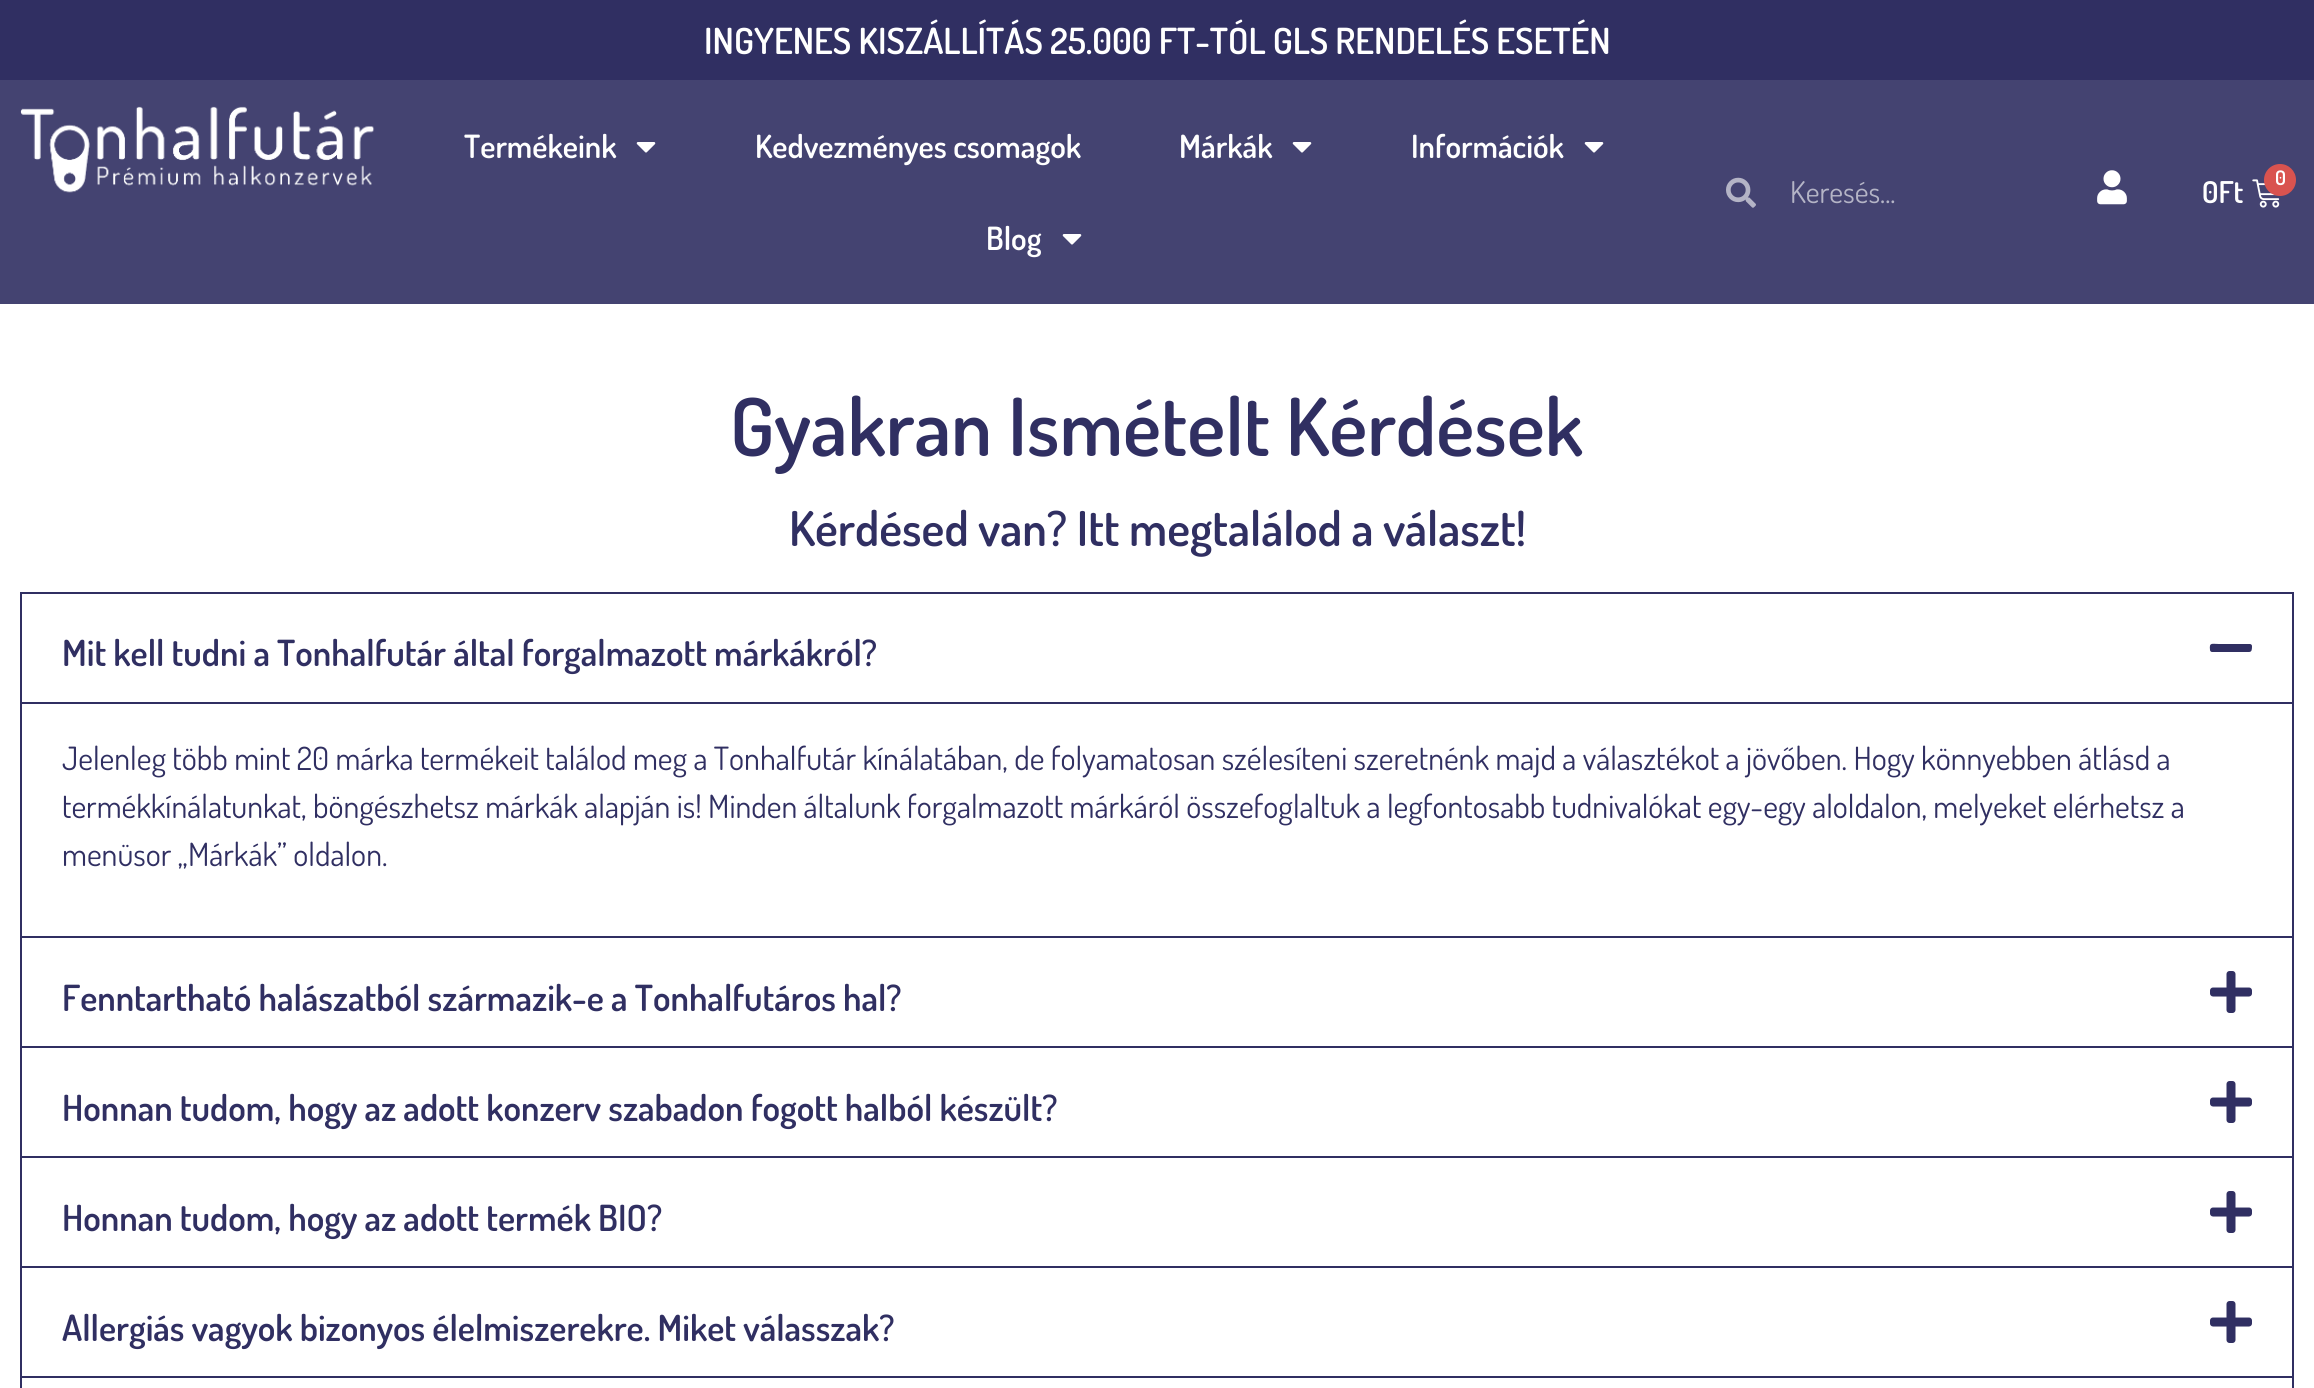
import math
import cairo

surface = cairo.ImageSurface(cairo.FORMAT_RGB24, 2314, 1388)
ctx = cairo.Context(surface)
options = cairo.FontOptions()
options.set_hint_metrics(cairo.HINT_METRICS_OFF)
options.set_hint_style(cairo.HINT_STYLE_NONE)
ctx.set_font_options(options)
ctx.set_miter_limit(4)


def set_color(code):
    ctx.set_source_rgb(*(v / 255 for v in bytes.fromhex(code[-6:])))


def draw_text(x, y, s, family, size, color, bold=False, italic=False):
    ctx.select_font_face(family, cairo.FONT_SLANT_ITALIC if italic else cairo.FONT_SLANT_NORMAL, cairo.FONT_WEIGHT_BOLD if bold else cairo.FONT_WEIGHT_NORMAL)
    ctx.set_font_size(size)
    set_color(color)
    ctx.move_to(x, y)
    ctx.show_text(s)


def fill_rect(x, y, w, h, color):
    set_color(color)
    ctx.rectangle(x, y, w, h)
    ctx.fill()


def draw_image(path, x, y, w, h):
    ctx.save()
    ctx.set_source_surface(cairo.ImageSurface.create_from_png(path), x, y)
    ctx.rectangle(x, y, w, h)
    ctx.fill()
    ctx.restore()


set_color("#ffffff")
ctx.paint()
fill_rect(0, 0, 2314, 80, "#302f62")
draw_text(704, 54, "INGYENES KISZÁLLÍTÁS 25.000 FT-TÓL GLS RENDELÉS ESETÉN", "Dosis SemiBold", 36, "#ffffff")
fill_rect(0, 80, 2314, 224, "#444371")
draw_image("assets/img1.png", 20, 106, 355, 87)
draw_text(464, 158, "Termékeink", "Dosis SemiBold", 32, "#ffffff")
draw_image("assets/img2.png", 636, 142, 20, 11)
draw_text(755, 158, "Kedvezményes csomagok", "Dosis SemiBold", 32, "#ffffff")
draw_text(1179, 158, "Márkák", "Dosis SemiBold", 32, "#ffffff")
draw_image("assets/img2.png", 1292, 142, 20, 11)
draw_text(1411, 158, "Információk", "Dosis SemiBold", 32, "#ffffff")
draw_image("assets/img2.png", 1584, 142, 20, 11)
draw_text(986, 250, "Blog", "Dosis SemiBold", 32, "#ffffff")
draw_image("assets/img2.png", 1062, 234, 20, 11)
draw_image("assets/img3.png", 1726, 177, 30, 31)
draw_text(1790, 203, "Keresés...", "Dosis", 30, "#b4b4c6")
draw_image("assets/img4.png", 2097, 170, 30, 35)
draw_image("assets/img5.png", 2252, 179, 28, 29)
set_color("#d9534f")
ctx.arc(2280, 180, 16, 0, 2 * math.pi)
ctx.fill()
draw_text(2275, 185, "0", "Dosis SemiBold", 20, "#ffffff")
draw_text(2202, 203, "0Ft", "Dosis SemiBold", 30, "#ffffff")
draw_text(730, 456, "Gyakran Ismételt Kérdések", "Dosis SemiBold", 80, "#302f62")
draw_text(789, 546, "Kérdésed van? Itt megtalálod a választ!", "Dosis SemiBold", 48, "#302f62")
ctx.rectangle(21, 593, 2272, 344)
ctx.stroke()
draw_text(62, 666, "Mit kell tudni a Tonhalfutár által forgalmazott márkákról?", "Dosis SemiBold", 36, "#302f62")
ctx.new_path()
ctx.move_to(2249, 644)
ctx.line_to(2250, 644)
ctx.curve_to(2251, 644, 2252, 645, 2252, 646)
ctx.curve_to(2252, 649, 2252, 652, 2249, 652)
ctx.line_to(2212, 652)
ctx.curve_to(2211, 652, 2210, 651, 2210, 650)
ctx.curve_to(2209, 642, 2212, 644, 2219, 644)
ctx.close_path()
ctx.fill()
fill_rect(22, 702, 2270, 2, "#302f62")
draw_text(62, 770, "Jelenleg több mint 20 márka termékeit találod meg a Tonhalfutár kínálatában, de folyamatosan szélesíteni szeretnénk majd a választékot a jövőben. Hogy könnyebben átlásd a", "Dosis", 32, "#302f62")
draw_text(62, 818, "termékkínálatunkat, böngészhetsz márkák alapján is! Minden általunk forgalmazott márkáról összefoglaltuk a legfontosabb tudnivalókat egy-egy aloldalon, melyeket elérhetsz a", "Dosis", 32, "#302f62")
draw_text(62, 866, "menüsor „Márkák” oldalon.", "Dosis", 32, "#302f62")
fill_rect(2292, 938, 2, 450, "#302f62")
fill_rect(20, 1046, 2274, 2, "#302f62")
fill_rect(20, 938, 2, 110, "#302f62")
draw_text(62, 1011, "Fenntartható halászatból származik-e a Tonhalfutáros hal?", "Dosis SemiBold", 36, "#302f62")
draw_image("assets/img6.png", 2210, 971, 42, 42)
fill_rect(20, 1156, 2274, 2, "#302f62")
fill_rect(20, 1048, 2, 110, "#302f62")
draw_text(62, 1121, "Honnan tudom, hogy az adott konzerv szabadon fogott halból készült?", "Dosis SemiBold", 36, "#302f62")
draw_image("assets/img6.png", 2210, 1081, 42, 42)
fill_rect(20, 1266, 2274, 2, "#302f62")
fill_rect(20, 1158, 2, 110, "#302f62")
draw_text(62, 1231, "Honnan tudom, hogy az adott termék BIO?", "Dosis SemiBold", 36, "#302f62")
draw_image("assets/img6.png", 2210, 1191, 42, 42)
fill_rect(20, 1376, 2274, 2, "#302f62")
fill_rect(20, 1268, 2, 120, "#302f62")
draw_text(62, 1341, "Allergiás vagyok bizonyos élelmiszerekre. Miket válasszak?", "Dosis SemiBold", 36, "#302f62")
draw_image("assets/img6.png", 2210, 1301, 42, 42)
surface.write_to_png("output.png")
